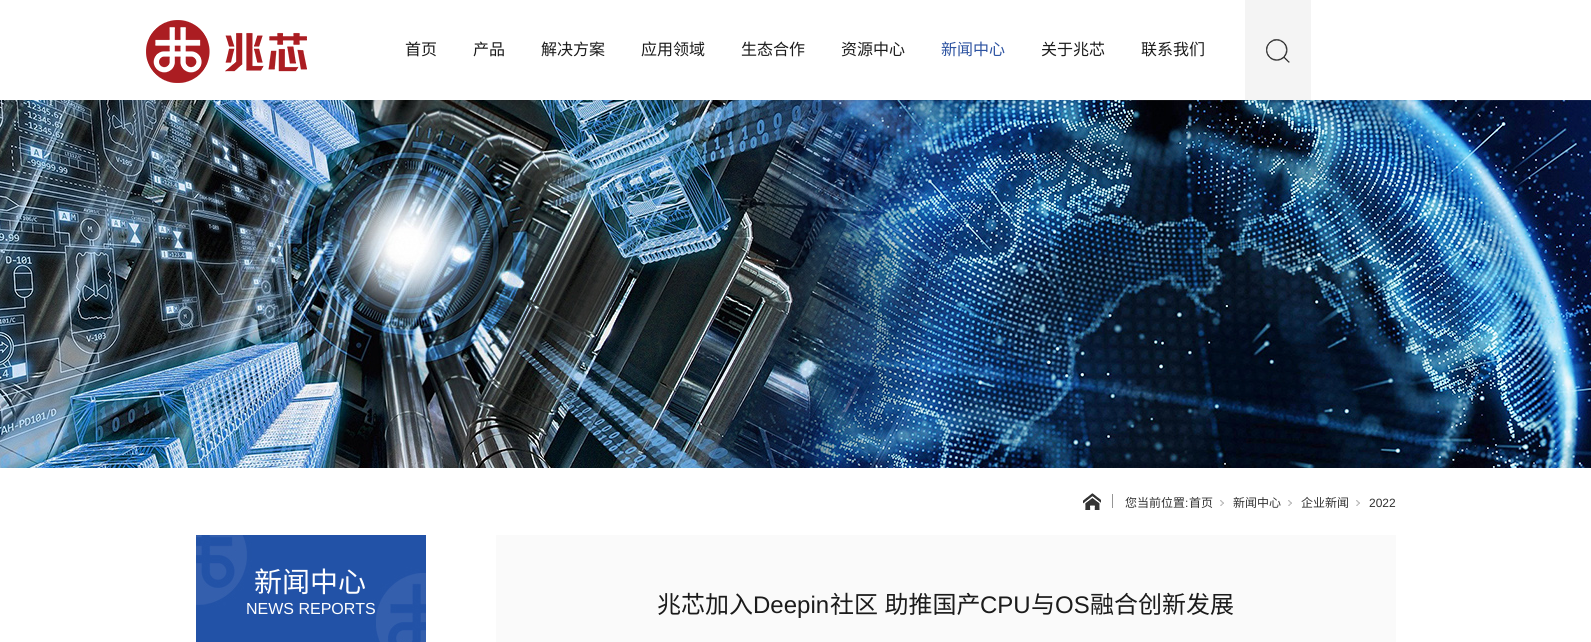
import math
import cairo

surface = cairo.ImageSurface(cairo.FORMAT_RGB24, 1591, 642)
ctx = cairo.Context(surface)
options = cairo.FontOptions()
options.set_hint_metrics(cairo.HINT_METRICS_OFF)
options.set_hint_style(cairo.HINT_STYLE_NONE)
ctx.set_font_options(options)
ctx.set_miter_limit(4)


def set_color(code):
    ctx.set_source_rgb(*(v / 255 for v in bytes.fromhex(code[-6:])))


def draw_text(x, y, s, family, size, color, bold=False, italic=False):
    ctx.select_font_face(family, cairo.FONT_SLANT_ITALIC if italic else cairo.FONT_SLANT_NORMAL, cairo.FONT_WEIGHT_BOLD if bold else cairo.FONT_WEIGHT_NORMAL)
    ctx.set_font_size(size)
    set_color(color)
    ctx.move_to(x, y)
    ctx.show_text(s)


def draw_spaced(x, y, s, letter, word):
    ctx.move_to(x, y)
    for ch in s:
        ctx.show_text(ch)
        ctx.rel_move_to(letter + word * (ch == ' '), 0)


def fill_rect(x, y, w, h, color):
    set_color(color)
    ctx.rectangle(x, y, w, h)
    ctx.fill()


def draw_image(path, x, y, w, h):
    ctx.save()
    ctx.set_source_surface(cairo.ImageSurface.create_from_png(path), x, y)
    ctx.rectangle(x, y, w, h)
    ctx.fill()
    ctx.restore()


set_color("#ffffff")
ctx.paint()
draw_image("assets/img1.png", 146, 20, 161, 63)
draw_text(405, 55, "首页", "Noto Sans CJK SC", 16, "#1b1b1b")
draw_text(473, 55, "产品", "Noto Sans CJK SC", 16, "#1b1b1b")
draw_text(541, 55, "解决方案", "Noto Sans CJK SC", 16, "#1b1b1b")
draw_text(641, 55, "应用领域", "Noto Sans CJK SC", 16, "#1b1b1b")
draw_text(741, 55, "生态合作", "Noto Sans CJK SC", 16, "#1b1b1b")
draw_text(841, 55, "资源中心", "Noto Sans CJK SC", 16, "#1b1b1b")
draw_text(941, 55, "新闻中心", "Noto Sans CJK SC", 16, "#2d53a1")
draw_text(1041, 55, "关于兆芯", "Noto Sans CJK SC", 16, "#1b1b1b")
draw_text(1141, 55, "联系我们", "Noto Sans CJK SC", 16, "#1b1b1b")
draw_image("assets/img2.png", 1245, 0, 66, 100)
draw_image("assets/img3.png", 0, 100, 1591, 368)
draw_image("assets/img4.png", 1083, 493, 30, 17)
draw_text(1125, 507, "您当前位置", "Noto Sans CJK SC", 12, "#313131")
draw_text(1185, 507, ":", "Liberation Sans", 12, "#313131")
draw_text(1189, 507, "首页", "Noto Sans CJK SC", 12, "#313131")
draw_image("assets/img5.png", 1220, 500, 4, 6)
draw_text(1233, 507, "新闻中心", "Noto Sans CJK SC", 12, "#313131")
draw_image("assets/img5.png", 1288, 500, 4, 6)
draw_text(1301, 507, "企业新闻", "Noto Sans CJK SC", 12, "#313131")
draw_image("assets/img5.png", 1356, 500, 4, 6)
draw_text(1369, 507, "2022", "Liberation Sans", 12, "#313131")
draw_image("assets/img6.png", 196, 535, 230, 107)
draw_text(254, 592, "新闻中心", "Noto Sans CJK SC", 28, "#ffffff")
draw_text(246, 614, "NEWS REPORTS", "Liberation Sans", 16, "#ffffff")
fill_rect(496, 535, 900, 107, "#fafafa")
draw_text(657, 613, "兆芯加入", "Noto Sans CJK SC", 24, "#1b1b1b")
draw_text(753, 613, "Deepin", "Liberation Sans", 24, "#1b1b1b")
ctx.select_font_face("Noto Sans CJK SC")
draw_spaced(830, 613, "社区 助推国产", 0, 1)
draw_text(980, 613, "CPU", "Liberation Sans", 24, "#1b1b1b")
draw_text(1031, 613, "与", "Noto Sans CJK SC", 24, "#1b1b1b")
draw_text(1055, 613, "OS", "Liberation Sans", 24, "#1b1b1b")
draw_text(1090, 613, "融合创新发展", "Noto Sans CJK SC", 24, "#1b1b1b")
surface.write_to_png("output.png")
